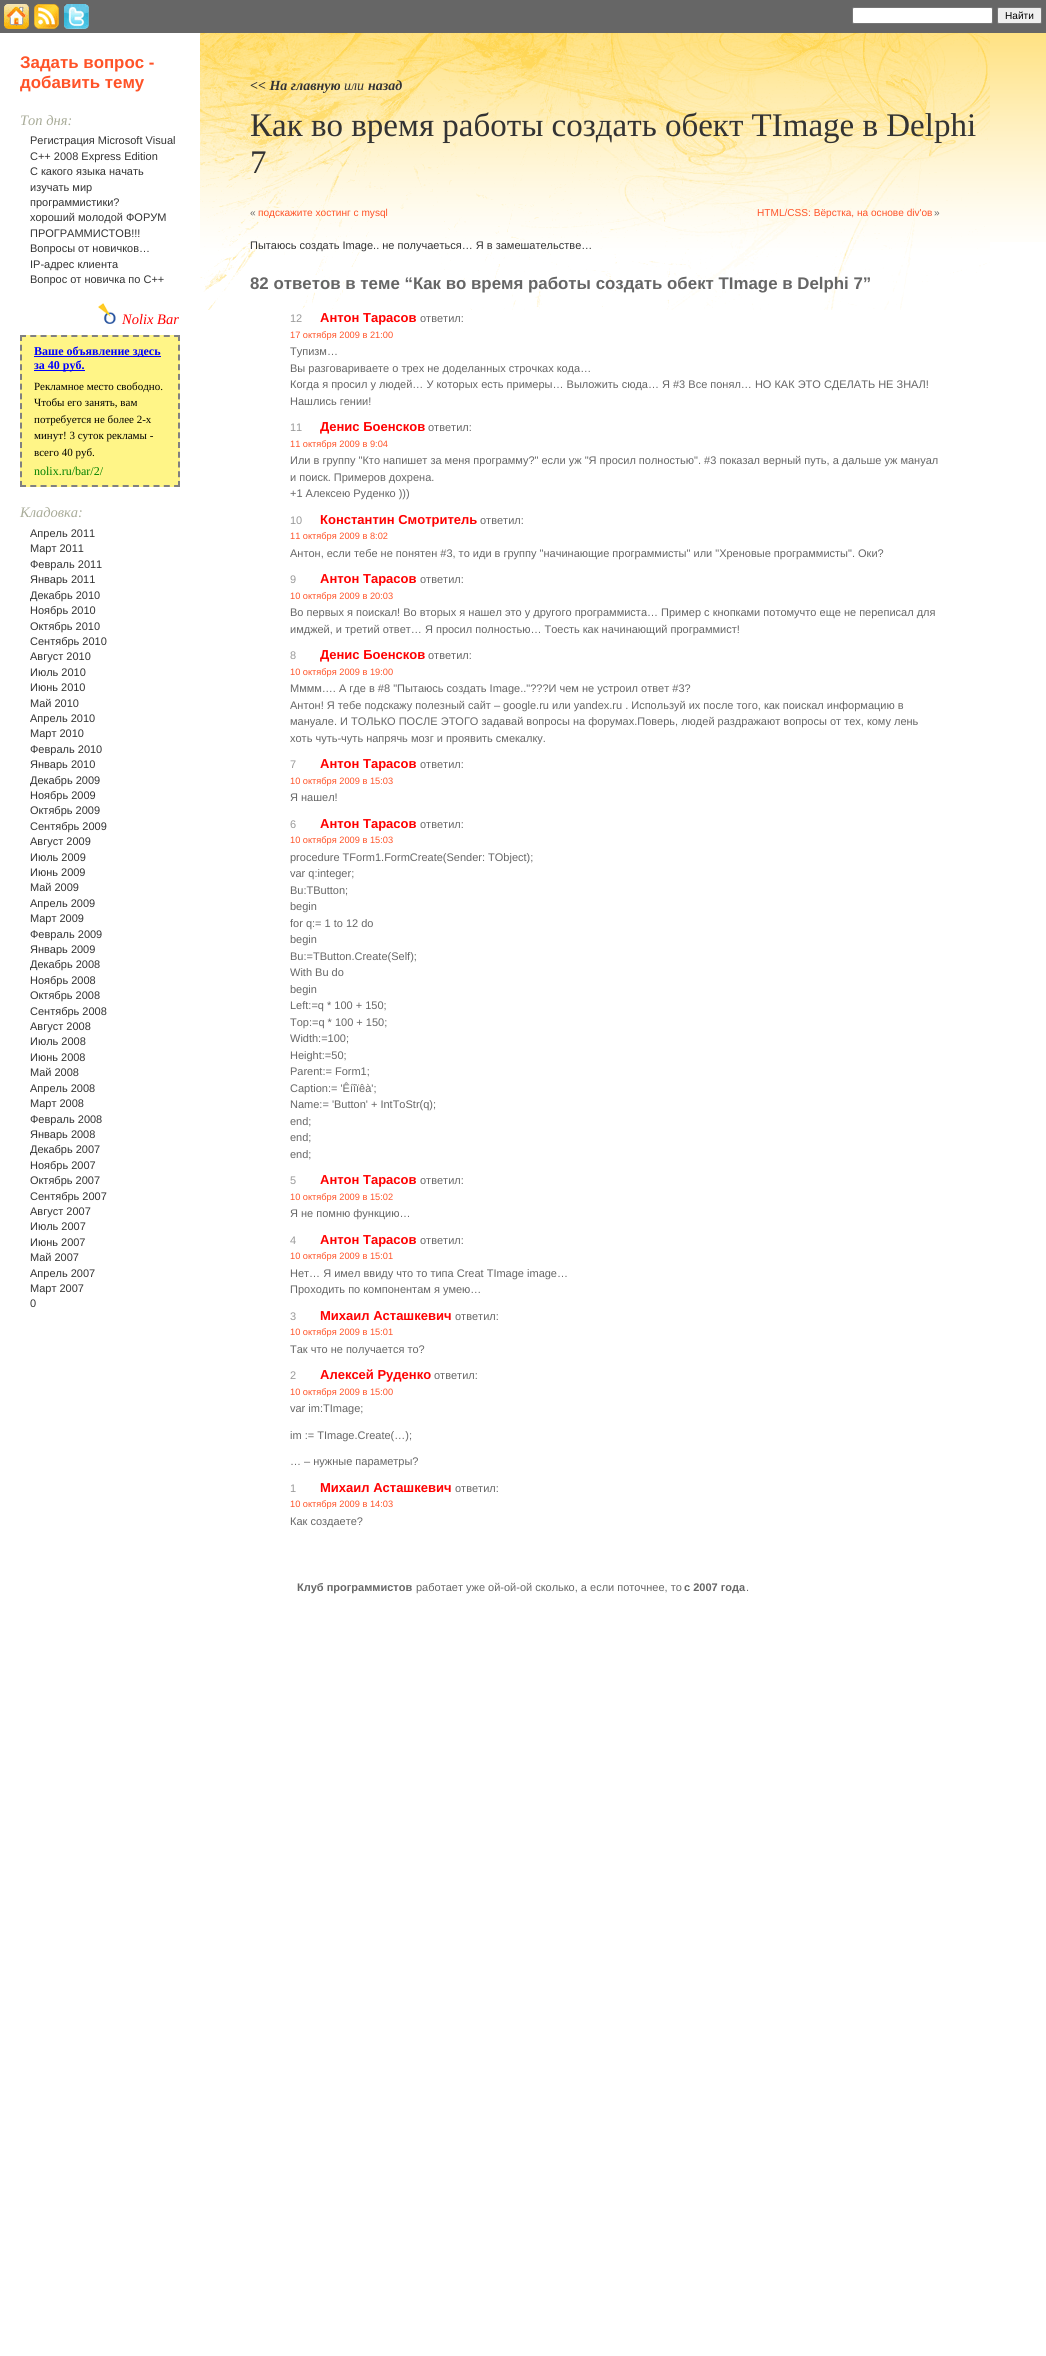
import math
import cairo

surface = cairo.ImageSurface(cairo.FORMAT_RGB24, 1046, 2356)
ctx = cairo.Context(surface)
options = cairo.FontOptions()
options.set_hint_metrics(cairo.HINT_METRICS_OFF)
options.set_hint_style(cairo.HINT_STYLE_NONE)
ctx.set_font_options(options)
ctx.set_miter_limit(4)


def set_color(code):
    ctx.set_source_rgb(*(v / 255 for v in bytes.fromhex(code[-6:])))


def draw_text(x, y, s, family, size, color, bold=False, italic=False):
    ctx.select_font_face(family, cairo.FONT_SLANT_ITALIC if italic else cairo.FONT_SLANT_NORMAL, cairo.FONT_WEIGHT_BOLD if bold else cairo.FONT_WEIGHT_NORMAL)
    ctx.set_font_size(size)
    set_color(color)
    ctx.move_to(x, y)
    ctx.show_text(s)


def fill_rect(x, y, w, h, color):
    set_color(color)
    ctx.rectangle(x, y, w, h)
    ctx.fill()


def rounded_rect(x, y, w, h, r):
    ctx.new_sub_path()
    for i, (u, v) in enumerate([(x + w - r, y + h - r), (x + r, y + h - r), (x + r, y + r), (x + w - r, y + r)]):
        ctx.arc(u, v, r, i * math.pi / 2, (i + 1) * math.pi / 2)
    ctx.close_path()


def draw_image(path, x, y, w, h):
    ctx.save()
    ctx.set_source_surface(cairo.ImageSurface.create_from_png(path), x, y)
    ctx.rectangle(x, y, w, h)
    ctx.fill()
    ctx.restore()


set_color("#ffffff")
ctx.paint()
draw_image("assets/img1.png", 0, 0, 1046, 242)
draw_image("assets/img2.png", 4, 4, 25, 25)
draw_image("assets/img3.png", 34, 4, 25, 25)
draw_image("assets/img4.png", 64, 4, 25, 25)
set_color("#ffffff")
rounded_rect(852.5, 7.5, 140, 16, 1.5)
ctx.fill_preserve()
set_color("#767676")
ctx.set_line_width(1)
ctx.stroke()
set_color("#efefef")
rounded_rect(997.5, 7.5, 44, 16, 1.5)
ctx.fill_preserve()
set_color("#767676")
ctx.stroke()
draw_text(1005, 19, "Найти", "Liberation Sans", 10.1, "#000000")
draw_image("assets/img5.png", 200, 33, 790, 277)
fill_rect(0, 33, 200, 209, "#ffffff")
draw_text(20, 68, "Задать вопрос -", "Liberation Sans", 16.85, "#ff5328", bold=True)
draw_text(20, 88, "добавить тему", "Liberation Sans", 16.85, "#ff5328", bold=True)
draw_text(20, 125, "Топ дня:", "Liberation Serif", 14.5, "#a9ac99", italic=True)
draw_text(30, 144, "Регистрация Microsoft Visual", "Liberation Sans", 11, "#333333")
draw_text(30, 160, "C++ 2008 Express Edition", "Liberation Sans", 11, "#333333")
draw_text(30, 175, "С какого языка начать", "Liberation Sans", 11, "#333333")
draw_text(30, 191, "изучать мир", "Liberation Sans", 11, "#333333")
draw_text(30, 206, "программистики?", "Liberation Sans", 11, "#333333")
draw_text(30, 221, "хороший молодой ФОРУМ", "Liberation Sans", 11, "#333333")
draw_text(30, 237, "ПРОГРАММИСТОВ!!!", "Liberation Sans", 11, "#333333")
draw_text(30, 252, "Вопросы от новичков…", "Liberation Sans", 11, "#333333")
draw_text(30, 268, "IP-адрес клиента", "Liberation Sans", 11, "#333333")
draw_text(30, 283, "Вопрос от новичка по С++", "Liberation Sans", 11, "#333333")
draw_image("assets/img6.png", 98, 303, 18, 21)
draw_text(122, 324, "Nolix Bar", "Liberation Serif", 14.5, "#ff0000", italic=True)
fill_rect(20, 335, 160, 152, "#fff587")
ctx.new_path()
ctx.move_to(20, 336)
ctx.line_to(180, 336)
set_color("#808080")
ctx.set_line_width(2)
ctx.set_dash([6, 4.27])
ctx.stroke()
ctx.new_path()
ctx.move_to(179, 335)
ctx.line_to(179, 487)
ctx.set_dash([6, 3.73])
ctx.stroke()
ctx.new_path()
ctx.move_to(20, 486)
ctx.line_to(180, 486)
ctx.set_dash([6, 4.27])
ctx.stroke()
ctx.new_path()
ctx.move_to(21, 335)
ctx.line_to(21, 487)
ctx.set_dash([6, 3.73])
ctx.stroke()
fill_rect(34, 356, 127, 1, "#0000ff")
draw_text(34, 355, "Ваше объявление здесь", "Liberation Serif", 12, "#0000ff", bold=True)
fill_rect(34, 370, 51, 1, "#0000ff")
draw_text(34, 369, "за 40 руб.", "Liberation Serif", 12, "#0000ff", bold=True)
draw_text(34, 390, "Рекламное место свободно.", "Liberation Serif", 11, "#000000")
draw_text(34, 406, "Чтобы его занять, вам", "Liberation Serif", 11, "#000000")
draw_text(34, 423, "потребуется не более 2-х", "Liberation Serif", 11, "#000000")
draw_text(34, 439, "минут! 3 суток рекламы -", "Liberation Serif", 11, "#000000")
draw_text(34, 456, "всего 40 руб.", "Liberation Serif", 11, "#000000")
draw_text(34, 475, "nolix.ru/bar/2/", "Liberation Serif", 12, "#008000")
draw_text(20, 517, "Кладовка:", "Liberation Serif", 14.5, "#a9ac99", italic=True)
draw_text(30, 537, "Апрель 2011", "Liberation Sans", 11, "#333333")
draw_text(30, 552, "Март 2011", "Liberation Sans", 11, "#333333")
draw_text(30, 568, "Февраль 2011", "Liberation Sans", 11, "#333333")
draw_text(30, 583, "Январь 2011", "Liberation Sans", 11, "#333333")
draw_text(30, 599, "Декабрь 2010", "Liberation Sans", 11, "#333333")
draw_text(30, 614, "Ноябрь 2010", "Liberation Sans", 11, "#333333")
draw_text(30, 630, "Октябрь 2010", "Liberation Sans", 11, "#333333")
draw_text(30, 645, "Сентябрь 2010", "Liberation Sans", 11, "#333333")
draw_text(30, 660, "Август 2010", "Liberation Sans", 11, "#333333")
draw_text(30, 676, "Июль 2010", "Liberation Sans", 11, "#333333")
draw_text(30, 691, "Июнь 2010", "Liberation Sans", 11, "#333333")
draw_text(30, 707, "Май 2010", "Liberation Sans", 11, "#333333")
draw_text(30, 722, "Апрель 2010", "Liberation Sans", 11, "#333333")
draw_text(30, 737, "Март 2010", "Liberation Sans", 11, "#333333")
draw_text(30, 753, "Февраль 2010", "Liberation Sans", 11, "#333333")
draw_text(30, 768, "Январь 2010", "Liberation Sans", 11, "#333333")
draw_text(30, 784, "Декабрь 2009", "Liberation Sans", 11, "#333333")
draw_text(30, 799, "Ноябрь 2009", "Liberation Sans", 11, "#333333")
draw_text(30, 814, "Октябрь 2009", "Liberation Sans", 11, "#333333")
draw_text(30, 830, "Сентябрь 2009", "Liberation Sans", 11, "#333333")
draw_text(30, 845, "Август 2009", "Liberation Sans", 11, "#333333")
draw_text(30, 861, "Июль 2009", "Liberation Sans", 11, "#333333")
draw_text(30, 876, "Июнь 2009", "Liberation Sans", 11, "#333333")
draw_text(30, 891, "Май 2009", "Liberation Sans", 11, "#333333")
draw_text(30, 907, "Апрель 2009", "Liberation Sans", 11, "#333333")
draw_text(30, 922, "Март 2009", "Liberation Sans", 11, "#333333")
draw_text(30, 938, "Февраль 2009", "Liberation Sans", 11, "#333333")
draw_text(30, 953, "Январь 2009", "Liberation Sans", 11, "#333333")
draw_text(30, 968, "Декабрь 2008", "Liberation Sans", 11, "#333333")
draw_text(30, 984, "Ноябрь 2008", "Liberation Sans", 11, "#333333")
draw_text(30, 999, "Октябрь 2008", "Liberation Sans", 11, "#333333")
draw_text(30, 1015, "Сентябрь 2008", "Liberation Sans", 11, "#333333")
draw_text(30, 1030, "Август 2008", "Liberation Sans", 11, "#333333")
draw_text(30, 1045, "Июль 2008", "Liberation Sans", 11, "#333333")
draw_text(30, 1061, "Июнь 2008", "Liberation Sans", 11, "#333333")
draw_text(30, 1076, "Май 2008", "Liberation Sans", 11, "#333333")
draw_text(30, 1092, "Апрель 2008", "Liberation Sans", 11, "#333333")
draw_text(30, 1107, "Март 2008", "Liberation Sans", 11, "#333333")
draw_text(30, 1123, "Февраль 2008", "Liberation Sans", 11, "#333333")
draw_text(30, 1138, "Январь 2008", "Liberation Sans", 11, "#333333")
draw_text(30, 1153, "Декабрь 2007", "Liberation Sans", 11, "#333333")
draw_text(30, 1169, "Ноябрь 2007", "Liberation Sans", 11, "#333333")
draw_text(30, 1184, "Октябрь 2007", "Liberation Sans", 11, "#333333")
draw_text(30, 1200, "Сентябрь 2007", "Liberation Sans", 11, "#333333")
draw_text(30, 1215, "Август 2007", "Liberation Sans", 11, "#333333")
draw_text(30, 1230, "Июль 2007", "Liberation Sans", 11, "#333333")
draw_text(30, 1246, "Июнь 2007", "Liberation Sans", 11, "#333333")
draw_text(30, 1261, "Май 2007", "Liberation Sans", 11, "#333333")
draw_text(30, 1277, "Апрель 2007", "Liberation Sans", 11, "#333333")
draw_text(30, 1292, "Март 2007", "Liberation Sans", 11, "#333333")
draw_text(30, 1307, "0", "Liberation Sans", 11, "#333333")
draw_text(250, 90, "<< На главную", "Liberation Serif", 14, "#333333", bold=True, italic=True)
draw_text(344, 90, "или", "Liberation Serif", 14, "#333333", italic=True)
draw_text(368, 90, "назад", "Liberation Serif", 14, "#333333", bold=True, italic=True)
draw_text(250, 136, "Как во время работы создать обект TImage в Delphi", "Liberation Serif", 33, "#333333")
draw_text(250, 173, "7", "Liberation Serif", 33, "#333333")
draw_text(250, 216, "«", "Liberation Sans", 10.1, "#666666")
draw_text(258, 216, "подскажите хостинг с mysql", "Liberation Sans", 10.1, "#ff5328")
draw_text(757, 216, "HTML/CSS: Вёрстка, на основе div'ов", "Liberation Sans", 10.1, "#ff5328")
draw_text(934, 216, "»", "Liberation Sans", 10.1, "#666666")
draw_text(250, 249, "Пытаюсь создать Image.. не получаеться… Я в замешательстве…", "Liberation Sans", 11, "#333333")
draw_text(250, 289, "82 ответов в теме “Как во время работы создать обект TImage в Delphi 7”", "Liberation Sans", 16.85, "#666666", bold=True)
draw_text(290, 322, "12", "Liberation Sans", 11, "#999999")
draw_text(320, 322, "Антон Тарасов", "Liberation Sans", 13, "#ff0000", bold=True)
draw_text(420, 322, "ответил:", "Liberation Sans", 11, "#666666")
draw_text(290, 338, "17 октября 2009 в 21:00", "Liberation Sans", 9.25, "#ff5328")
draw_text(290, 355, "Тупизм…", "Liberation Sans", 11, "#666666")
draw_text(290, 372, "Вы разговариваете о трех не доделанных строчках кода…", "Liberation Sans", 11, "#666666")
draw_text(290, 388, "Когда я просил у людей… У которых есть примеры… Выложить сюда… Я #3 Все понял… НО КАК ЭТО СДЕЛАТЬ НЕ ЗНАЛ!", "Liberation Sans", 11, "#666666")
draw_text(290, 405, "Нашлись гении!", "Liberation Sans", 11, "#666666")
draw_text(290, 431, "11", "Liberation Sans", 11, "#999999")
draw_text(320, 431, "Денис Боенсков", "Liberation Sans", 13, "#ff0000", bold=True)
draw_text(428, 431, "ответил:", "Liberation Sans", 11, "#666666")
draw_text(290, 447, "11 октября 2009 в 9:04", "Liberation Sans", 9.25, "#ff5328")
draw_text(290, 464, "Или в группу \"Кто напишет за меня программу?\" если уж \"Я просил полностью\". #3 показал верный путь, а дальше уж мануал", "Liberation Sans", 11, "#666666")
draw_text(290, 481, "и поиск. Примеров дохрена.", "Liberation Sans", 11, "#666666")
draw_text(290, 497, "+1 Алексею Руденко )))", "Liberation Sans", 11, "#666666")
draw_text(290, 524, "10", "Liberation Sans", 11, "#999999")
draw_text(320, 524, "Константин Смотритель", "Liberation Sans", 13, "#ff0000", bold=True)
draw_text(480, 524, "ответил:", "Liberation Sans", 11, "#666666")
draw_text(290, 539, "11 октября 2009 в 8:02", "Liberation Sans", 9.25, "#ff5328")
draw_text(290, 557, "Антон, если тебе не понятен #3, то иди в группу \"начинающие программисты\" или \"Хреновые программисты\". Оки?", "Liberation Sans", 11, "#666666")
draw_text(290, 583, "9", "Liberation Sans", 11, "#999999")
draw_text(320, 583, "Антон Тарасов", "Liberation Sans", 13, "#ff0000", bold=True)
draw_text(420, 583, "ответил:", "Liberation Sans", 11, "#666666")
draw_text(290, 599, "10 октября 2009 в 20:03", "Liberation Sans", 9.25, "#ff5328")
draw_text(290, 616, "Во первых я поискал! Во вторых я нашел это у другого программиста… Пример с кнопками потомучто еще не переписал для", "Liberation Sans", 11, "#666666")
draw_text(290, 633, "имджей, и третий ответ… Я просил полностью… Тоесть как начинающий программист!", "Liberation Sans", 11, "#666666")
draw_text(290, 659, "8", "Liberation Sans", 11, "#999999")
draw_text(320, 659, "Денис Боенсков", "Liberation Sans", 13, "#ff0000", bold=True)
draw_text(428, 659, "ответил:", "Liberation Sans", 11, "#666666")
draw_text(290, 675, "10 октября 2009 в 19:00", "Liberation Sans", 9.25, "#ff5328")
draw_text(290, 692, "Мммм…. А где в #8 \"Пытаюсь создать Image..\"???И чем не устроил ответ #3?", "Liberation Sans", 11, "#666666")
draw_text(290, 709, "Антон! Я тебе подскажу полезный сайт – google.ru или yandex.ru . Используй их после того, как поискал информацию в", "Liberation Sans", 11, "#666666")
draw_text(290, 725, "мануале. И ТОЛЬКО ПОСЛЕ ЭТОГО задавай вопросы на форумах.Поверь, людей раздражают вопросы от тех, кому лень", "Liberation Sans", 11, "#666666")
draw_text(290, 742, "хоть чуть-чуть напрячь мозг и проявить смекалку.", "Liberation Sans", 11, "#666666")
draw_text(290, 768, "7", "Liberation Sans", 11, "#999999")
draw_text(320, 768, "Антон Тарасов", "Liberation Sans", 13, "#ff0000", bold=True)
draw_text(420, 768, "ответил:", "Liberation Sans", 11, "#666666")
draw_text(290, 784, "10 октября 2009 в 15:03", "Liberation Sans", 9.25, "#ff5328")
draw_text(290, 801, "Я нашел!", "Liberation Sans", 11, "#666666")
draw_text(290, 828, "6", "Liberation Sans", 11, "#999999")
draw_text(320, 828, "Антон Тарасов", "Liberation Sans", 13, "#ff0000", bold=True)
draw_text(420, 828, "ответил:", "Liberation Sans", 11, "#666666")
draw_text(290, 843, "10 октября 2009 в 15:03", "Liberation Sans", 9.25, "#ff5328")
draw_text(290, 861, "procedure TForm1.FormCreate(Sender: TObject);", "Liberation Sans", 11, "#666666")
draw_text(290, 877, "var q:integer;", "Liberation Sans", 11, "#666666")
draw_text(290, 894, "Bu:TButton;", "Liberation Sans", 11, "#666666")
draw_text(290, 910, "begin", "Liberation Sans", 11, "#666666")
draw_text(290, 927, "for q:= 1 to 12 do", "Liberation Sans", 11, "#666666")
draw_text(290, 943, "begin", "Liberation Sans", 11, "#666666")
draw_text(290, 960, "Bu:=TButton.Create(Self);", "Liberation Sans", 11, "#666666")
draw_text(290, 976, "With Bu do", "Liberation Sans", 11, "#666666")
draw_text(290, 993, "begin", "Liberation Sans", 11, "#666666")
draw_text(290, 1009, "Left:=q * 100 + 150;", "Liberation Sans", 11, "#666666")
draw_text(290, 1026, "Top:=q * 100 + 150;", "Liberation Sans", 11, "#666666")
draw_text(290, 1042, "Width:=100;", "Liberation Sans", 11, "#666666")
draw_text(290, 1059, "Height:=50;", "Liberation Sans", 11, "#666666")
draw_text(290, 1075, "Parent:= Form1;", "Liberation Sans", 11, "#666666")
draw_text(290, 1092, "Caption:= 'Êíîïêà';", "Liberation Sans", 11, "#666666")
draw_text(290, 1108, "Name:= 'Button' + IntToStr(q);", "Liberation Sans", 11, "#666666")
draw_text(290, 1125, "end;", "Liberation Sans", 11, "#666666")
draw_text(290, 1141, "end;", "Liberation Sans", 11, "#666666")
draw_text(290, 1158, "end;", "Liberation Sans", 11, "#666666")
draw_text(290, 1184, "5", "Liberation Sans", 11, "#999999")
draw_text(320, 1184, "Антон Тарасов", "Liberation Sans", 13, "#ff0000", bold=True)
draw_text(420, 1184, "ответил:", "Liberation Sans", 11, "#666666")
draw_text(290, 1200, "10 октября 2009 в 15:02", "Liberation Sans", 9.25, "#ff5328")
draw_text(290, 1217, "Я не помню функцию…", "Liberation Sans", 11, "#666666")
draw_text(290, 1244, "4", "Liberation Sans", 11, "#999999")
draw_text(320, 1244, "Антон Тарасов", "Liberation Sans", 13, "#ff0000", bold=True)
draw_text(420, 1244, "ответил:", "Liberation Sans", 11, "#666666")
draw_text(290, 1259, "10 октября 2009 в 15:01", "Liberation Sans", 9.25, "#ff5328")
draw_text(290, 1277, "Нет… Я имел ввиду что то типа Creat TImage image…", "Liberation Sans", 11, "#666666")
draw_text(290, 1293, "Проходить по компонентам я умею…", "Liberation Sans", 11, "#666666")
draw_text(290, 1320, "3", "Liberation Sans", 11, "#999999")
draw_text(320, 1320, "Михаил Асташкевич", "Liberation Sans", 13, "#ff0000", bold=True)
draw_text(455, 1320, "ответил:", "Liberation Sans", 11, "#666666")
draw_text(290, 1335, "10 октября 2009 в 15:01", "Liberation Sans", 9.25, "#ff5328")
draw_text(290, 1353, "Так что не получается то?", "Liberation Sans", 11, "#666666")
draw_text(290, 1379, "2", "Liberation Sans", 11, "#999999")
draw_text(320, 1379, "Алексей Руденко", "Liberation Sans", 13, "#ff0000", bold=True)
draw_text(434, 1379, "ответил:", "Liberation Sans", 11, "#666666")
draw_text(290, 1395, "10 октября 2009 в 15:00", "Liberation Sans", 9.25, "#ff5328")
draw_text(290, 1412, "var im:TImage;", "Liberation Sans", 11, "#666666")
draw_text(290, 1439, "im := TImage.Create(…);", "Liberation Sans", 11, "#666666")
draw_text(290, 1465, "… – нужные параметры?", "Liberation Sans", 11, "#666666")
draw_text(290, 1492, "1", "Liberation Sans", 11, "#999999")
draw_text(320, 1492, "Михаил Асташкевич", "Liberation Sans", 13, "#ff0000", bold=True)
draw_text(455, 1492, "ответил:", "Liberation Sans", 11, "#666666")
draw_text(290, 1507, "10 октября 2009 в 14:03", "Liberation Sans", 9.25, "#ff5328")
draw_text(290, 1525, "Как создаете?", "Liberation Sans", 11, "#666666")
draw_text(297, 1591, "Клуб программистов", "Liberation Sans", 11, "#666666", bold=True)
draw_text(416, 1591, "работает уже ой-ой-ой сколько, а если поточнее, то", "Liberation Sans", 11, "#666666")
draw_text(684, 1591, "с 2007 года", "Liberation Sans", 11, "#666666", bold=True)
draw_text(746, 1591, ".", "Liberation Sans", 11, "#666666")
surface.write_to_png("output.png")
